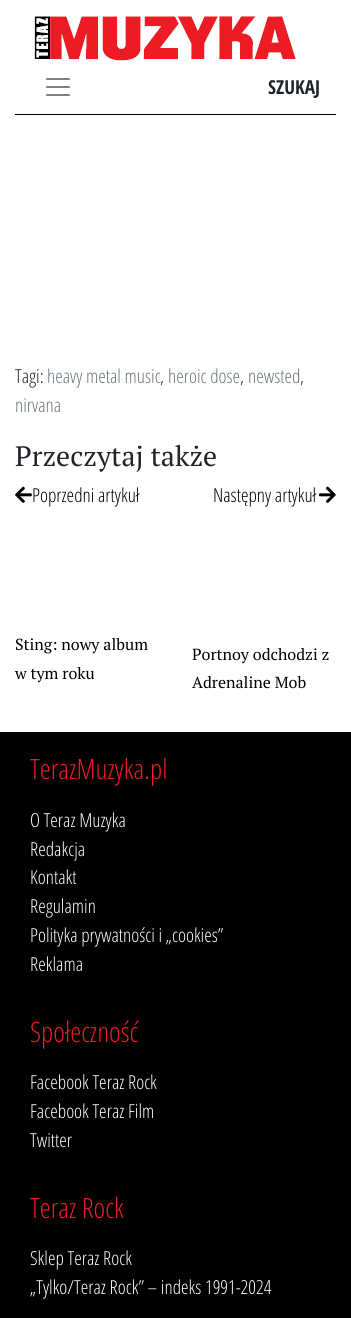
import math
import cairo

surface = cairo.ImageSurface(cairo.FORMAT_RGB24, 351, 1318)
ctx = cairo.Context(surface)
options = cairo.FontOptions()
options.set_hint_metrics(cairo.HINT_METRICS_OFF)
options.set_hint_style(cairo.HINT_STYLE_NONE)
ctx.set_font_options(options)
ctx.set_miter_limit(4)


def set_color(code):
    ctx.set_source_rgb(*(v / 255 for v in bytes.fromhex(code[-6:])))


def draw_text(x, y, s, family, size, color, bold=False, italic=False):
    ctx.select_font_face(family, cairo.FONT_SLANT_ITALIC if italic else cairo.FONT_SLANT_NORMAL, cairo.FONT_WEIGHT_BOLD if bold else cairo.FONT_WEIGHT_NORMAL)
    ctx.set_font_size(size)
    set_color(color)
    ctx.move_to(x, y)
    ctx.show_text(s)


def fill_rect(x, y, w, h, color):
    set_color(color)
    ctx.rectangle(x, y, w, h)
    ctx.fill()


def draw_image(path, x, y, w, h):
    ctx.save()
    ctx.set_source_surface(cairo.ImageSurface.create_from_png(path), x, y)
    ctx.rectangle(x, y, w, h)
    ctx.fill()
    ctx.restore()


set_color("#ffffff")
ctx.paint()
fill_rect(15, 114, 321, 1, "#000000")
draw_image("assets/img1.png", 34, 16, 262, 45)
draw_image("assets/img2.png", 46, 78, 24, 18)
draw_text(268, 94, "SZUKAJ", "Open Sans Condensed", 19.25, "#212529", bold=True)
draw_text(15, 383, "Tagi:", "Open Sans Condensed Light", 19.25, "#212529")
draw_text(47, 383, "heavy metal music", "Open Sans Condensed Light", 19.25, "#6c757d")
draw_text(160, 383, ",", "Open Sans Condensed Light", 19.25, "#212529")
draw_text(168, 383, "heroic dose", "Open Sans Condensed Light", 19.25, "#6c757d")
draw_text(240, 383, ",", "Open Sans Condensed Light", 19.25, "#212529")
draw_text(248, 383, "newsted", "Open Sans Condensed Light", 19.25, "#6c757d")
draw_text(300, 383, ",", "Open Sans Condensed Light", 19.25, "#212529")
draw_text(15, 412, "nirvana", "Open Sans Condensed Light", 19.25, "#6c757d")
draw_text(15, 466, "Przeczytaj także", "PT Serif", 28, "#212529")
draw_image("assets/img3.png", 15, 486, 17, 17)
draw_text(32, 502, "Poprzedni artykuł", "Open Sans Condensed Light", 19.25, "#000000")
draw_text(15, 650, "Sting: nowy album", "PT Serif", 16, "#000000")
draw_text(15, 679, "w tym roku", "PT Serif", 16, "#000000")
draw_text(213, 502, "Następny artykuł", "Open Sans Condensed Light", 19.25, "#000000")
draw_image("assets/img4.png", 319, 486, 17, 17)
draw_text(192, 660, "Portnoy odchodzi z", "PT Serif", 16, "#000000")
draw_text(192, 688, "Adrenaline Mob", "PT Serif", 16, "#000000")
fill_rect(0, 732, 351, 586, "#000000")
draw_text(30, 779, "TerazMuzyka.pl", "Open Sans Condensed Light", 28, "#ed1b24")
draw_text(30, 827, "O Teraz Muzyka", "Open Sans Condensed Light", 19.25, "#ffffff")
draw_text(30, 856, "Redakcja", "Open Sans Condensed Light", 19.25, "#ffffff")
draw_text(30, 884, "Kontakt", "Open Sans Condensed Light", 19.25, "#ffffff")
draw_text(30, 913, "Regulamin", "Open Sans Condensed Light", 19.25, "#ffffff")
draw_text(30, 942, "Polityka prywatności i „cookies”", "Open Sans Condensed Light", 19.25, "#ffffff")
draw_text(30, 971, "Reklama", "Open Sans Condensed Light", 19.25, "#ffffff")
draw_text(30, 1042, "Społeczność", "Open Sans Condensed Light", 28, "#ed1b24")
draw_text(30, 1089, "Facebook Teraz Rock", "Open Sans Condensed Light", 19.25, "#ffffff")
draw_text(30, 1118, "Facebook Teraz Film", "Open Sans Condensed Light", 19.25, "#ffffff")
draw_text(30, 1147, "Twitter", "Open Sans Condensed Light", 19.25, "#ffffff")
draw_text(30, 1218, "Teraz Rock", "Open Sans Condensed Light", 28, "#ed1b24")
draw_text(30, 1265, "Sklep Teraz Rock", "Open Sans Condensed Light", 19.25, "#ffffff")
draw_text(30, 1294, "„Tylko/Teraz Rock” – indeks 1991-2024", "Open Sans Condensed Light", 19.25, "#ffffff")
surface.write_to_png("output.png")
